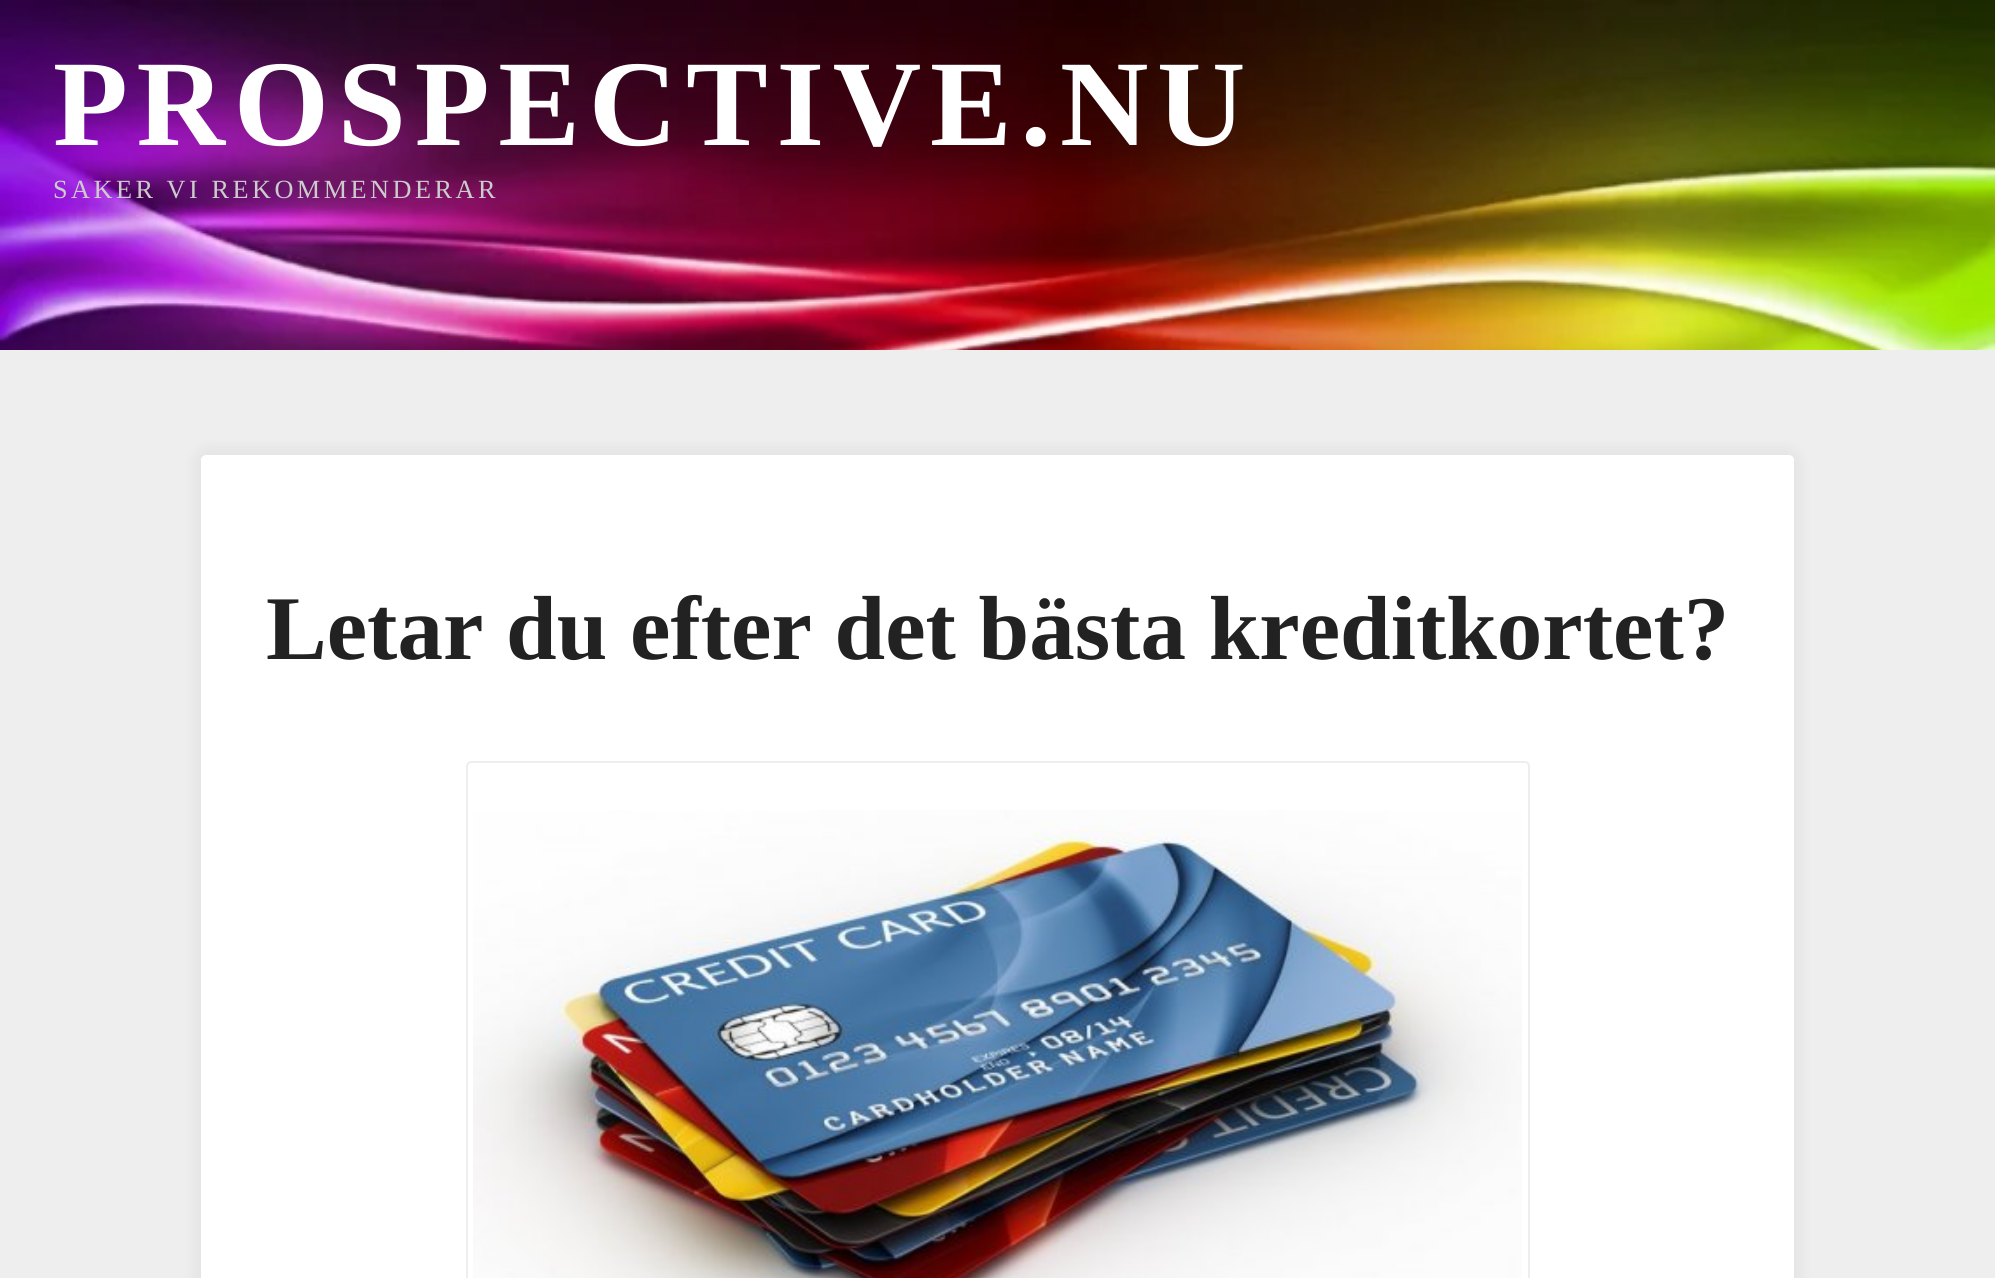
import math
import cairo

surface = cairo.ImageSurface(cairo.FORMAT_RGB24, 1995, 1278)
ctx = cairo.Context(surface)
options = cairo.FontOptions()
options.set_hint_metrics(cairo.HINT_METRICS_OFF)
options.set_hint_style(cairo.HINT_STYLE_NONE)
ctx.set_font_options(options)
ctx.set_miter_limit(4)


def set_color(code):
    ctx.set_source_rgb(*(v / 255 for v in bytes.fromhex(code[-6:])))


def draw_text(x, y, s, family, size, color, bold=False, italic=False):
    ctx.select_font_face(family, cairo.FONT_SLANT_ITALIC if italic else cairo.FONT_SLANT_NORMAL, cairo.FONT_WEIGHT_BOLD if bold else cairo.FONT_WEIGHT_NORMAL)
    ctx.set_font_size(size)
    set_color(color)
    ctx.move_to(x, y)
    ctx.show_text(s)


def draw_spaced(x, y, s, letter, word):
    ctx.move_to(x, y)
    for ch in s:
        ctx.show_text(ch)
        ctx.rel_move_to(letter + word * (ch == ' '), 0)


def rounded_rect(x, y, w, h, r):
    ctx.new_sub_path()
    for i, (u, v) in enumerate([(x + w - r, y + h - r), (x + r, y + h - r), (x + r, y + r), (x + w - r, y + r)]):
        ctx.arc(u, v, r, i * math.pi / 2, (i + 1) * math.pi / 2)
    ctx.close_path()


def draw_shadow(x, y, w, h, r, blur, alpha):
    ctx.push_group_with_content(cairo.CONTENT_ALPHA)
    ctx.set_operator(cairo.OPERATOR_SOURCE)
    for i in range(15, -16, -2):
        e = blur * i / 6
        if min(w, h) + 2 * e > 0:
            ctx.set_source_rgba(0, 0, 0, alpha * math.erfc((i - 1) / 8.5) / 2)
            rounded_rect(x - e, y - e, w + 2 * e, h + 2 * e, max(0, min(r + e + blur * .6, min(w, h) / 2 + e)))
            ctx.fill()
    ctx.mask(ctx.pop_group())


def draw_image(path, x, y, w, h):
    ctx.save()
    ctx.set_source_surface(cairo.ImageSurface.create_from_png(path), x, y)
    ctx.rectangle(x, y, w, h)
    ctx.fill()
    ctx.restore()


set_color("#eeeeee")
ctx.paint()
draw_image("assets/img1.png", 0, 0, 1995, 350)
ctx.select_font_face("Liberation Serif", cairo.FONT_SLANT_NORMAL, cairo.FONT_WEIGHT_BOLD)
ctx.set_font_size(122.5)
set_color("#ffffff")
draw_spaced(53, 145, "PROSPECTIVE.NU", 8.75, 0)
ctx.select_font_face("Liberation Serif")
ctx.set_font_size(26.25)
set_color("#cccccc")
draw_spaced(53, 198, "SAKER VI REKOMMENDERAR", 3.5, 0)
set_color("#000000")
draw_shadow(201, 455, 1593, 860, 5, 10.5, 0.08)
set_color("#ffffff")
rounded_rect(201, 455, 1593, 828, 5)
ctx.fill()
draw_text(266, 659, "Letar du efter det bästa kreditkortet?", "Liberation Serif", 91, "#222222", bold=True)
rounded_rect(467, 762, 1062, 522, 4)
set_color("#eeeeee")
ctx.stroke()
draw_image("assets/img2.png", 473, 810, 1049, 468)
surface.write_to_png("output.png")
